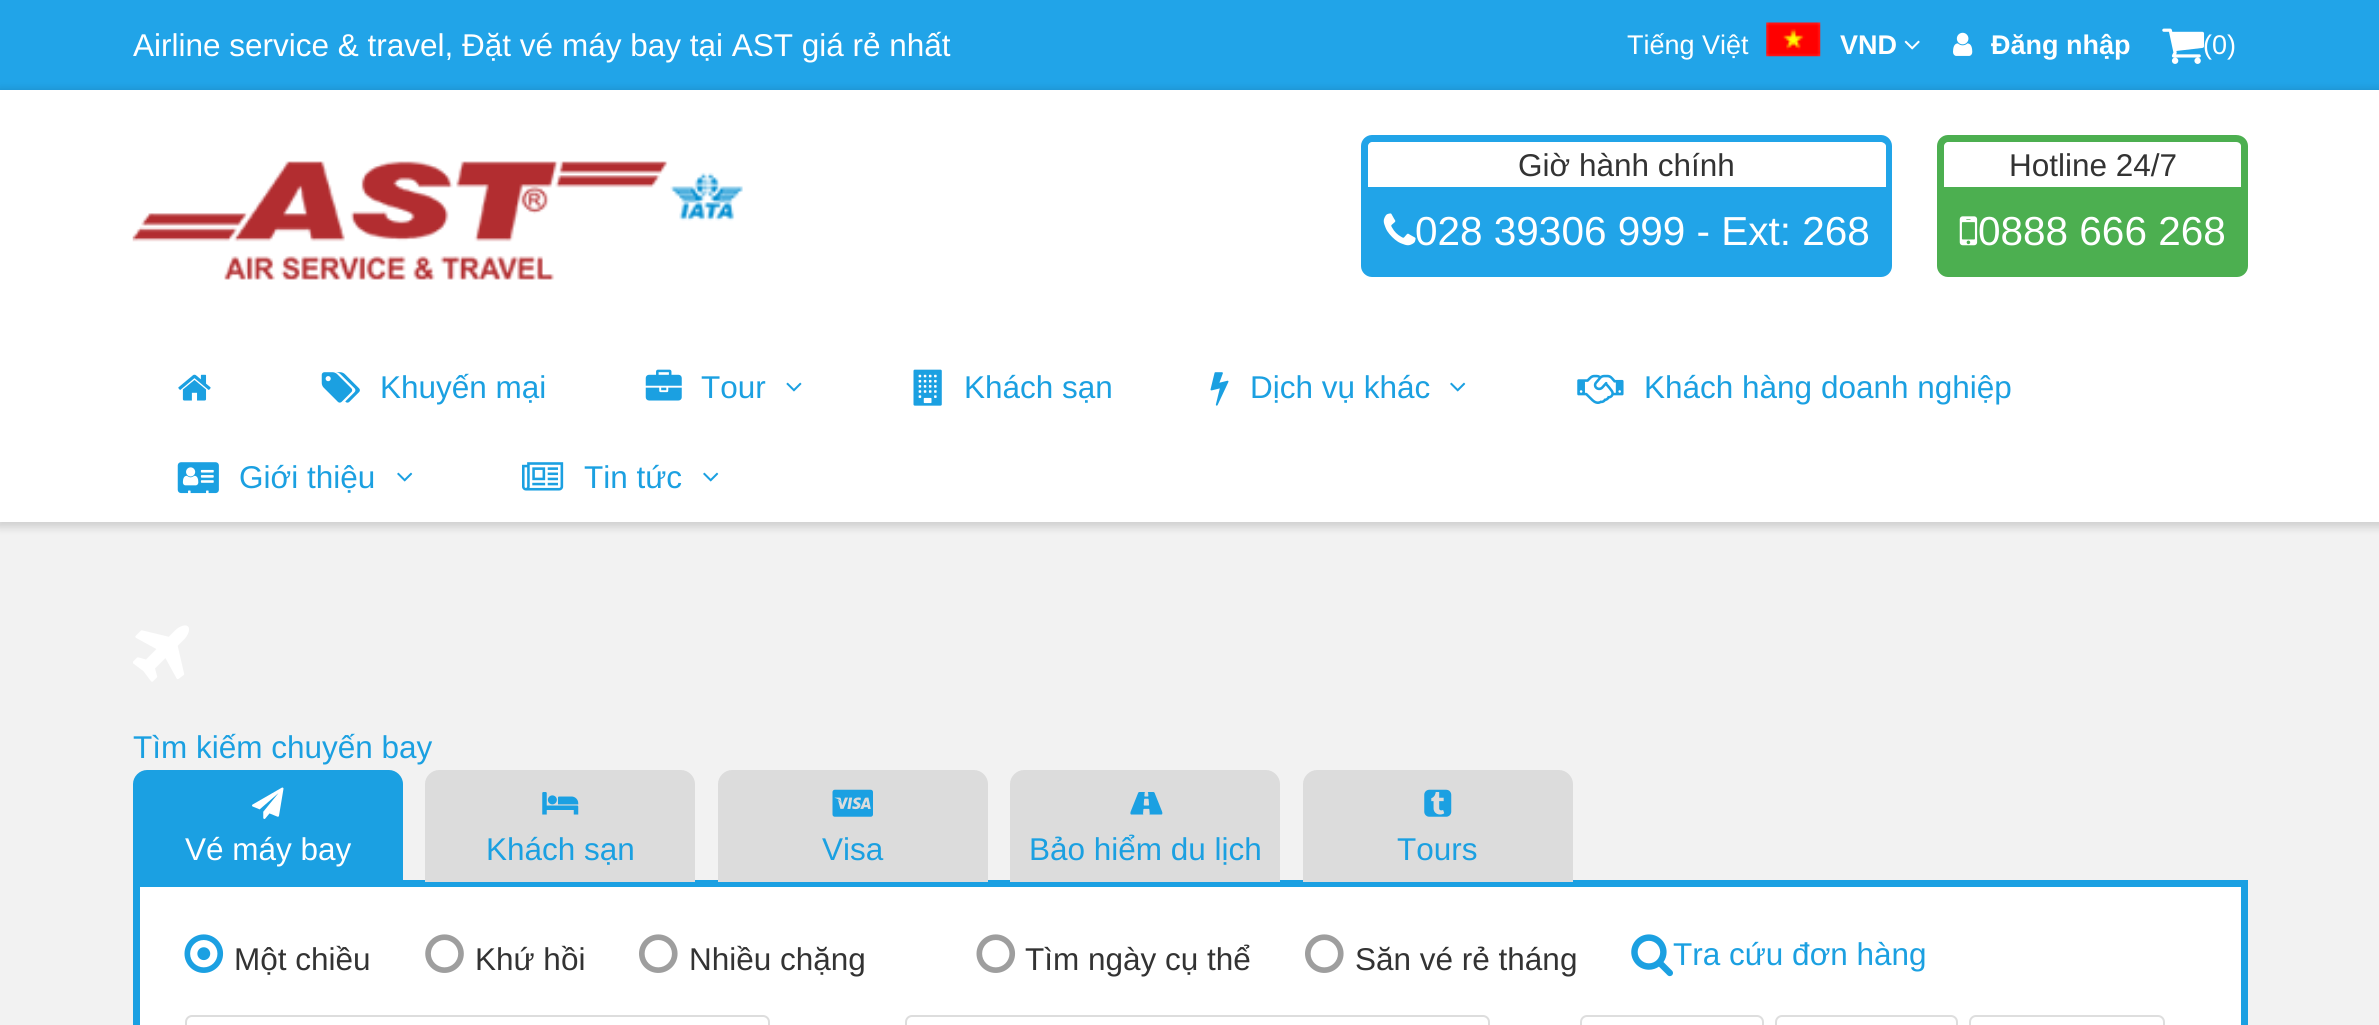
import math
import cairo

surface = cairo.ImageSurface(cairo.FORMAT_RGB24, 2379, 1025)
ctx = cairo.Context(surface)
options = cairo.FontOptions()
options.set_hint_metrics(cairo.HINT_METRICS_OFF)
options.set_hint_style(cairo.HINT_STYLE_NONE)
ctx.set_font_options(options)
ctx.set_miter_limit(4)


def set_color(code):
    ctx.set_source_rgb(*(v / 255 for v in bytes.fromhex(code[-6:])))


def draw_text(x, y, s, family, size, color, bold=False, italic=False):
    ctx.select_font_face(family, cairo.FONT_SLANT_ITALIC if italic else cairo.FONT_SLANT_NORMAL, cairo.FONT_WEIGHT_BOLD if bold else cairo.FONT_WEIGHT_NORMAL)
    ctx.set_font_size(size)
    set_color(color)
    ctx.move_to(x, y)
    ctx.show_text(s)


def fill_rect(x, y, w, h, color):
    set_color(color)
    ctx.rectangle(x, y, w, h)
    ctx.fill()


def rounded_rect(x, y, w, h, r):
    ctx.new_sub_path()
    for i, (u, v) in enumerate([(x + w - r, y + h - r), (x + r, y + h - r), (x + r, y + r), (x + w - r, y + r)]):
        ctx.arc(u, v, r, i * math.pi / 2, (i + 1) * math.pi / 2)
    ctx.close_path()


def draw_shadow(x, y, w, h, r, blur, alpha):
    ctx.push_group_with_content(cairo.CONTENT_ALPHA)
    ctx.set_operator(cairo.OPERATOR_SOURCE)
    for i in range(15, -16, -2):
        e = blur * i / 6
        if min(w, h) + 2 * e > 0:
            ctx.set_source_rgba(0, 0, 0, alpha * math.erfc((i - 1) / 8.5) / 2)
            rounded_rect(x - e, y - e, w + 2 * e, h + 2 * e, max(0, min(r + e + blur * .6, min(w, h) / 2 + e)))
            ctx.fill()
    ctx.mask(ctx.pop_group())


def draw_image(path, x, y, w, h):
    ctx.save()
    ctx.set_source_surface(cairo.ImageSurface.create_from_png(path), x, y)
    ctx.rectangle(x, y, w, h)
    ctx.fill()
    ctx.restore()


set_color("#ffffff")
ctx.paint()
fill_rect(0, 0, 2379, 90, "#21a4e8")
draw_text(133, 56, "Airline service & travel, Đặt vé máy bay tại AST giá rẻ nhất", "Liberation Sans", 31.5, "#ffffff")
draw_text(1627, 54, "Tiếng Việt", "Liberation Sans", 27, "#ffffff")
draw_image("assets/img1.png", 1766, 22, 55, 35)
draw_text(1840, 54, "VND", "Liberation Sans", 27, "#ffffff", bold=True)
draw_image("assets/img2.png", 1904, 40, 16, 10)
draw_image("assets/img3.png", 1953, 32, 20, 24)
draw_text(1991, 54, "Đăng nhập", "Liberation Sans", 27, "#ffffff", bold=True)
draw_image("assets/img4.png", 2162, 28, 43, 36)
draw_text(2203, 54, "(0)", "Liberation Sans", 27, "#ffffff")
fill_rect(0, 522, 2379, 503, "#f2f2f2")
ctx.save()
ctx.set_fill_rule(cairo.FILL_RULE_EVEN_ODD)
ctx.new_path()
ctx.move_to(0, 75)
ctx.line_to(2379, 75)
ctx.line_to(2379, 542)
ctx.line_to(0, 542)
ctx.close_path()
ctx.move_to(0, 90)
ctx.line_to(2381, 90)
ctx.line_to(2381, 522)
ctx.line_to(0, 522)
ctx.close_path()
ctx.clip()
set_color("#000000")
draw_shadow(-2, 90, 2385, 437, 0, 4.5, 0.15)
ctx.restore()
draw_image("assets/img5.png", 132, 161, 611, 119)
set_color("#21a4e8")
ctx.set_fill_rule(cairo.FILL_RULE_EVEN_ODD)
ctx.new_path()
ctx.move_to(1372, 135)
ctx.line_to(1881, 135)
ctx.curve_to(1887, 135, 1892, 140, 1892, 146)
ctx.line_to(1892, 187)
ctx.line_to(1361, 187)
ctx.line_to(1361, 146)
ctx.curve_to(1361, 140, 1366, 135, 1372, 135)
ctx.close_path()
ctx.move_to(1372, 142)
ctx.line_to(1881, 142)
ctx.curve_to(1883, 142, 1886, 144, 1886, 146)
ctx.line_to(1886, 187)
ctx.line_to(1368, 187)
ctx.line_to(1368, 146)
ctx.curve_to(1368, 144, 1370, 142, 1372, 142)
ctx.close_path()
ctx.fill()
draw_text(1518, 176, "Giờ hành chính", "Liberation Sans", 31.5, "#333333")
set_color("#21a4e8")
ctx.new_path()
ctx.move_to(1361, 187)
ctx.line_to(1892, 187)
ctx.line_to(1892, 266)
ctx.curve_to(1892, 272, 1887, 277, 1881, 277)
ctx.line_to(1372, 277)
ctx.curve_to(1366, 277, 1361, 272, 1361, 266)
ctx.close_path()
ctx.fill()
draw_image("assets/img6.png", 1383, 213, 33, 33)
draw_text(1415, 245, "028 39306 999 - Ext: 268", "Liberation Sans", 40.5, "#ffffff")
set_color("#4caf50")
ctx.new_path()
ctx.move_to(1948, 135)
ctx.line_to(2236, 135)
ctx.curve_to(2243, 135, 2248, 140, 2248, 146)
ctx.line_to(2248, 187)
ctx.line_to(1937, 187)
ctx.line_to(1937, 146)
ctx.curve_to(1937, 140, 1942, 135, 1948, 135)
ctx.close_path()
ctx.move_to(1948, 142)
ctx.line_to(2236, 142)
ctx.curve_to(2239, 142, 2241, 144, 2241, 146)
ctx.line_to(2241, 187)
ctx.line_to(1944, 187)
ctx.line_to(1944, 146)
ctx.curve_to(1944, 144, 1946, 142, 1948, 142)
ctx.close_path()
ctx.fill()
draw_text(2009, 176, "Hotline 24/7", "Liberation Sans", 31.5, "#333333")
set_color("#4caf50")
ctx.new_path()
ctx.move_to(1937, 187)
ctx.line_to(2248, 187)
ctx.line_to(2248, 266)
ctx.curve_to(2248, 272, 2243, 277, 2237, 277)
ctx.line_to(1948, 277)
ctx.curve_to(1942, 277, 1937, 272, 1937, 266)
ctx.close_path()
ctx.fill()
draw_image("assets/img7.png", 1959, 216, 19, 30)
draw_text(1978, 245, "0888 666 268", "Liberation Sans", 40.5, "#ffffff")
draw_image("assets/img8.png", 178, 374, 33, 27)
draw_image("assets/img9.png", 321, 372, 39, 31)
draw_text(380, 398, "Khuyến mại", "Liberation Sans", 31.5, "#1ba0e1")
draw_image("assets/img10.png", 645, 369, 37, 32)
draw_text(701, 398, "Tour", "Liberation Sans", 31.5, "#1ba0e1")
draw_image("assets/img11.png", 786, 382, 16, 10)
draw_image("assets/img12.png", 913, 369, 29, 37)
draw_text(964, 398, "Khách sạn", "Liberation Sans", 31.5, "#1ba0e1")
draw_image("assets/img13.png", 1210, 372, 19, 34)
draw_text(1250, 398, "Dịch vụ khác", "Liberation Sans", 31.5, "#1ba0e1")
draw_image("assets/img14.png", 1450, 382, 16, 10)
draw_image("assets/img15.png", 1577, 374, 47, 30)
draw_text(1644, 398, "Khách hàng doanh nghiệp", "Liberation Sans", 31.5, "#1ba0e1")
draw_image("assets/img16.png", 177, 462, 42, 32)
draw_text(239, 488, "Giới thiệu", "Liberation Sans", 31.5, "#1ba0e1")
draw_image("assets/img14.png", 397, 472, 16, 10)
draw_image("assets/img17.png", 522, 462, 42, 29)
draw_text(584, 488, "Tin tức", "Liberation Sans", 31.5, "#1ba0e1")
draw_image("assets/img14.png", 703, 472, 16, 10)
draw_image("assets/img18.png", 133, 625, 56, 57)
draw_text(133, 758, "Tìm kiếm chuyến bay", "Liberation Sans", 31.5, "#1ba0e1")
set_color("#ffffff")
ctx.rectangle(136.5, 883.5, 2108, 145)
ctx.fill_preserve()
set_color("#1ba0e2")
ctx.set_line_width(7)
ctx.stroke()
ctx.new_path()
ctx.move_to(147, 770)
ctx.line_to(389, 770)
ctx.curve_to(396.5, 770, 403, 776.5, 403, 784)
ctx.line_to(403, 882)
ctx.line_to(133, 882)
ctx.line_to(133, 784)
ctx.curve_to(133, 776.5, 139.5, 770, 147, 770)
ctx.close_path()
ctx.fill()
draw_image("assets/img19.png", 252, 787, 32, 32)
draw_text(185, 860, "Vé máy bay", "Liberation Sans", 31.5, "#ffffff")
set_color("#dcdcdc")
ctx.new_path()
ctx.move_to(439, 770)
ctx.line_to(681, 770)
ctx.curve_to(688.5, 770, 695, 776.5, 695, 784)
ctx.line_to(695, 882)
ctx.line_to(425, 882)
ctx.line_to(425, 784)
ctx.curve_to(425, 776.5, 431.5, 770, 439, 770)
ctx.close_path()
ctx.fill()
draw_image("assets/img20.png", 542, 792, 37, 23)
draw_text(486, 860, "Khách sạn", "Liberation Sans", 31.5, "#1ba0e1")
set_color("#dcdcdc")
ctx.new_path()
ctx.move_to(732, 770)
ctx.line_to(974, 770)
ctx.curve_to(981.5, 770, 988, 776.5, 988, 784)
ctx.line_to(988, 882)
ctx.line_to(718, 882)
ctx.line_to(718, 784)
ctx.curve_to(718, 776.5, 724.5, 770, 732, 770)
ctx.close_path()
ctx.fill()
draw_image("assets/img21.png", 832, 789, 41, 28)
draw_text(822, 860, "Visa", "Liberation Sans", 31.5, "#1ba0e1")
set_color("#dcdcdc")
ctx.new_path()
ctx.move_to(1024, 770)
ctx.line_to(1266, 770)
ctx.curve_to(1273.5, 770, 1280, 776.5, 1280, 784)
ctx.line_to(1280, 882)
ctx.line_to(1010, 882)
ctx.line_to(1010, 784)
ctx.curve_to(1010, 776.5, 1016.5, 770, 1024, 770)
ctx.close_path()
ctx.fill()
draw_image("assets/img22.png", 1130, 792, 33, 23)
draw_text(1029, 860, "Bảo hiểm du lịch", "Liberation Sans", 31.5, "#1ba0e1")
set_color("#dcdcdc")
ctx.new_path()
ctx.move_to(1317, 770)
ctx.line_to(1559, 770)
ctx.curve_to(1566.5, 770, 1573, 776.5, 1573, 784)
ctx.line_to(1573, 882)
ctx.line_to(1303, 882)
ctx.line_to(1303, 784)
ctx.curve_to(1303, 776.5, 1309.5, 770, 1317, 770)
ctx.close_path()
ctx.fill()
draw_image("assets/img23.png", 1424, 789, 28, 28)
draw_text(1397, 860, "Tours", "Liberation Sans", 31.5, "#1ba0e1")
draw_image("assets/img24.png", 184, 934, 40, 39)
draw_text(234, 970, "Một chiều", "Liberation Sans", 31.5, "#333333")
draw_image("assets/img25.png", 425, 934, 39, 39)
draw_text(475, 970, "Khứ hồi", "Liberation Sans", 31.5, "#333333")
draw_image("assets/img26.png", 639, 934, 39, 39)
draw_text(689, 970, "Nhiều chặng", "Liberation Sans", 31.5, "#333333")
draw_image("assets/img27.png", 976, 934, 40, 39)
draw_text(1025, 970, "Tìm ngày cụ thể", "Liberation Sans", 31.5, "#333333")
draw_image("assets/img26.png", 1305, 934, 39, 39)
draw_text(1355, 970, "Săn vé rẻ tháng", "Liberation Sans", 31.5, "#333333")
draw_image("assets/img28.png", 1631, 934, 42, 43)
draw_text(1673, 965, "Tra cứu đơn hàng", "Liberation Sans", 31.5, "#1ba0e1")
rounded_rect(186, 1016, 583, 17, 6)
set_color("#dddddd")
ctx.set_line_width(2)
ctx.stroke()
rounded_rect(906, 1016, 583, 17, 6)
ctx.stroke()
rounded_rect(1581, 1016, 182, 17, 6)
set_color("#dedede")
ctx.stroke()
rounded_rect(1776, 1016, 181, 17, 6)
ctx.stroke()
rounded_rect(1970, 1016, 194, 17, 6)
ctx.stroke()
surface.write_to_png("output.png")
